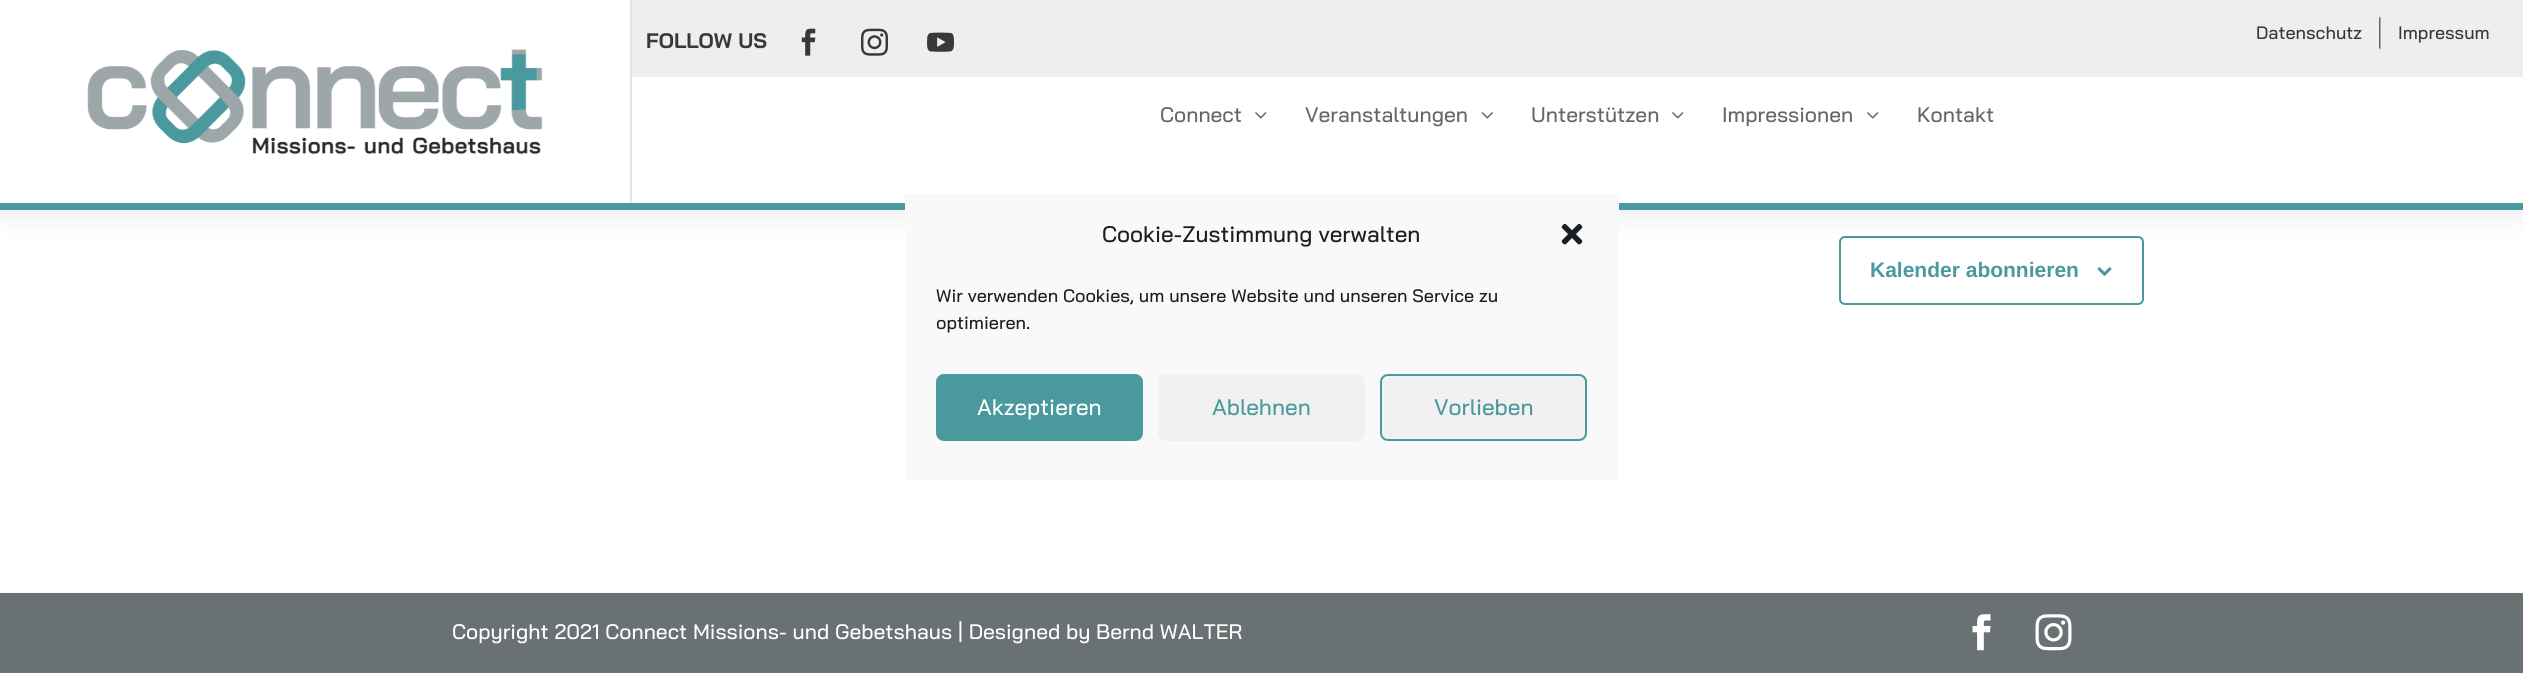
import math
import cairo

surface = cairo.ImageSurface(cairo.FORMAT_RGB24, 2523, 673)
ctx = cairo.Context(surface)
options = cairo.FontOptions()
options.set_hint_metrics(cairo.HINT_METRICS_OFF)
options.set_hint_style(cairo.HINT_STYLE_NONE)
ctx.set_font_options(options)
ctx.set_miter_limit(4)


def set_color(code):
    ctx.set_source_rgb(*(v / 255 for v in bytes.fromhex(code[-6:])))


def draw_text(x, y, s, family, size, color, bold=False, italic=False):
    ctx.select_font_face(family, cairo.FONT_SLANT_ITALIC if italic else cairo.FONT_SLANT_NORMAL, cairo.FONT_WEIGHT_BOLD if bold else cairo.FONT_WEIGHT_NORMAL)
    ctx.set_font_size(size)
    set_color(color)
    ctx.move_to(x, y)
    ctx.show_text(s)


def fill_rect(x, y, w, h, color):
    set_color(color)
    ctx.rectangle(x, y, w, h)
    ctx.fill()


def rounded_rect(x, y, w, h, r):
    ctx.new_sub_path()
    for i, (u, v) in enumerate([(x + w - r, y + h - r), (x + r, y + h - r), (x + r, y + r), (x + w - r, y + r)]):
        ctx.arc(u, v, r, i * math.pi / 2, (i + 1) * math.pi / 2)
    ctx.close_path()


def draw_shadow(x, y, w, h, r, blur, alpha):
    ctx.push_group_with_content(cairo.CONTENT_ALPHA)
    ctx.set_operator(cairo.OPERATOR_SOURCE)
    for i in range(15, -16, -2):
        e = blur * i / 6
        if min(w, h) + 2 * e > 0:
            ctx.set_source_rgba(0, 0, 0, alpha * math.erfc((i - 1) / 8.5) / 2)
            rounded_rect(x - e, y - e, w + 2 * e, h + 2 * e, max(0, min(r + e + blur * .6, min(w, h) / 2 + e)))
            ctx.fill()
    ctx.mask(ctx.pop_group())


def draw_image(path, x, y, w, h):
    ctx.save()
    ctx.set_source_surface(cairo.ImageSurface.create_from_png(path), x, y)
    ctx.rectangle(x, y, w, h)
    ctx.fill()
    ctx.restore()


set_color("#6a7173")
ctx.paint()
fill_rect(0, 210, 2523, 383, "#ffffff")
rounded_rect(1840, 237, 303, 67, 5)
set_color("#4a999f")
ctx.stroke()
set_color("#000000")
draw_shadow(0, 3, 2523, 210, 0, 13.5, 0.1)
fill_rect(0, 0, 2523, 203, "#ffffff")
fill_rect(0, 203, 2523, 7, "#4a999f")
fill_rect(630, 0, 2, 203, "#e6e6e6")
draw_image("assets/img1.png", 87, 49, 456, 106)
fill_rect(632, 0, 1891, 77, "#eeeeee")
draw_text(646, 48, "FOLLOW US", "Bai Jamjuree", 21, "#383838", bold=True)
draw_image("assets/img2.png", 801, 28, 15, 28)
draw_image("assets/img3.png", 861, 28, 27, 28)
draw_image("assets/img4.png", 927, 32, 27, 20)
set_color("#666666")
ctx.new_path()
ctx.move_to(2380.5, 16.5)
ctx.line_to(2380.5, 49.5)
ctx.line_to(2379, 48)
ctx.line_to(2379, 18)
ctx.close_path()
ctx.fill()
draw_text(2256, 39, "Datenschutz", "Bai Jamjuree Medium", 18, "#383838")
draw_text(2398, 39, "Impressum", "Bai Jamjuree Medium", 18, "#383838")
draw_text(1160, 122, "Connect", "Bai Jamjuree Medium", 21, "#666666")
draw_image("assets/img5.png", 1255, 112, 12, 7)
draw_text(1305, 122, "Veranstaltungen", "Bai Jamjuree Medium", 21, "#666666")
draw_image("assets/img6.png", 1481, 112, 12, 7)
draw_text(1531, 122, "Unterstützen", "Bai Jamjuree Medium", 21, "#666666")
draw_image("assets/img5.png", 1672, 112, 12, 7)
draw_text(1722, 122, "Impressionen", "Bai Jamjuree Medium", 21, "#666666")
draw_image("assets/img5.png", 1867, 112, 12, 7)
draw_text(1917, 122, "Kontakt", "Bai Jamjuree Medium", 21, "#666666")
draw_text(1870, 277, "Kalender abonnieren", "Liberation Sans", 21, "#4a999f", bold=True)
draw_image("assets/img7.png", 2097, 267, 15, 9)
draw_text(452, 639, "Copyright 2021 Connect Missions- und Gebetshaus | Designed by Bernd WALTER", "Bai Jamjuree Medium", 21, "#ffffff")
draw_image("assets/img8.png", 1972, 614, 19, 37)
draw_image("assets/img9.png", 2035, 614, 37, 37)
fill_rect(905, 194, 714, 286, "#f9f9f9")
draw_text(1102, 242, "Cookie-Zustimmung verwalten", "Bai Jamjuree Medium", 22.5, "#191e23")
draw_image("assets/img10.png", 1561, 223, 22, 22)
draw_text(936, 302, "Wir verwenden Cookies, um unsere Website und unseren Service zu", "Bai Jamjuree Medium", 18, "#191e23")
draw_text(936, 329, "optimieren.", "Bai Jamjuree Medium", 18, "#191e23")
set_color("#4a999f")
rounded_rect(937, 375, 205, 65, 7)
ctx.fill_preserve()
ctx.stroke()
draw_text(977, 415, "Akzeptieren", "Bai Jamjuree Medium", 22.5, "#ffffff")
set_color("#f1f1f1")
rounded_rect(1158, 374, 207, 67, 8)
ctx.fill()
draw_text(1212, 415, "Ablehnen", "Bai Jamjuree Medium", 22.5, "#4a999f")
set_color("#f1f1f1")
rounded_rect(1381, 375, 205, 65, 7)
ctx.fill_preserve()
set_color("#4a999f")
ctx.stroke()
draw_text(1434, 415, "Vorlieben", "Bai Jamjuree Medium", 22.5, "#4a999f")
surface.write_to_png("output.png")
